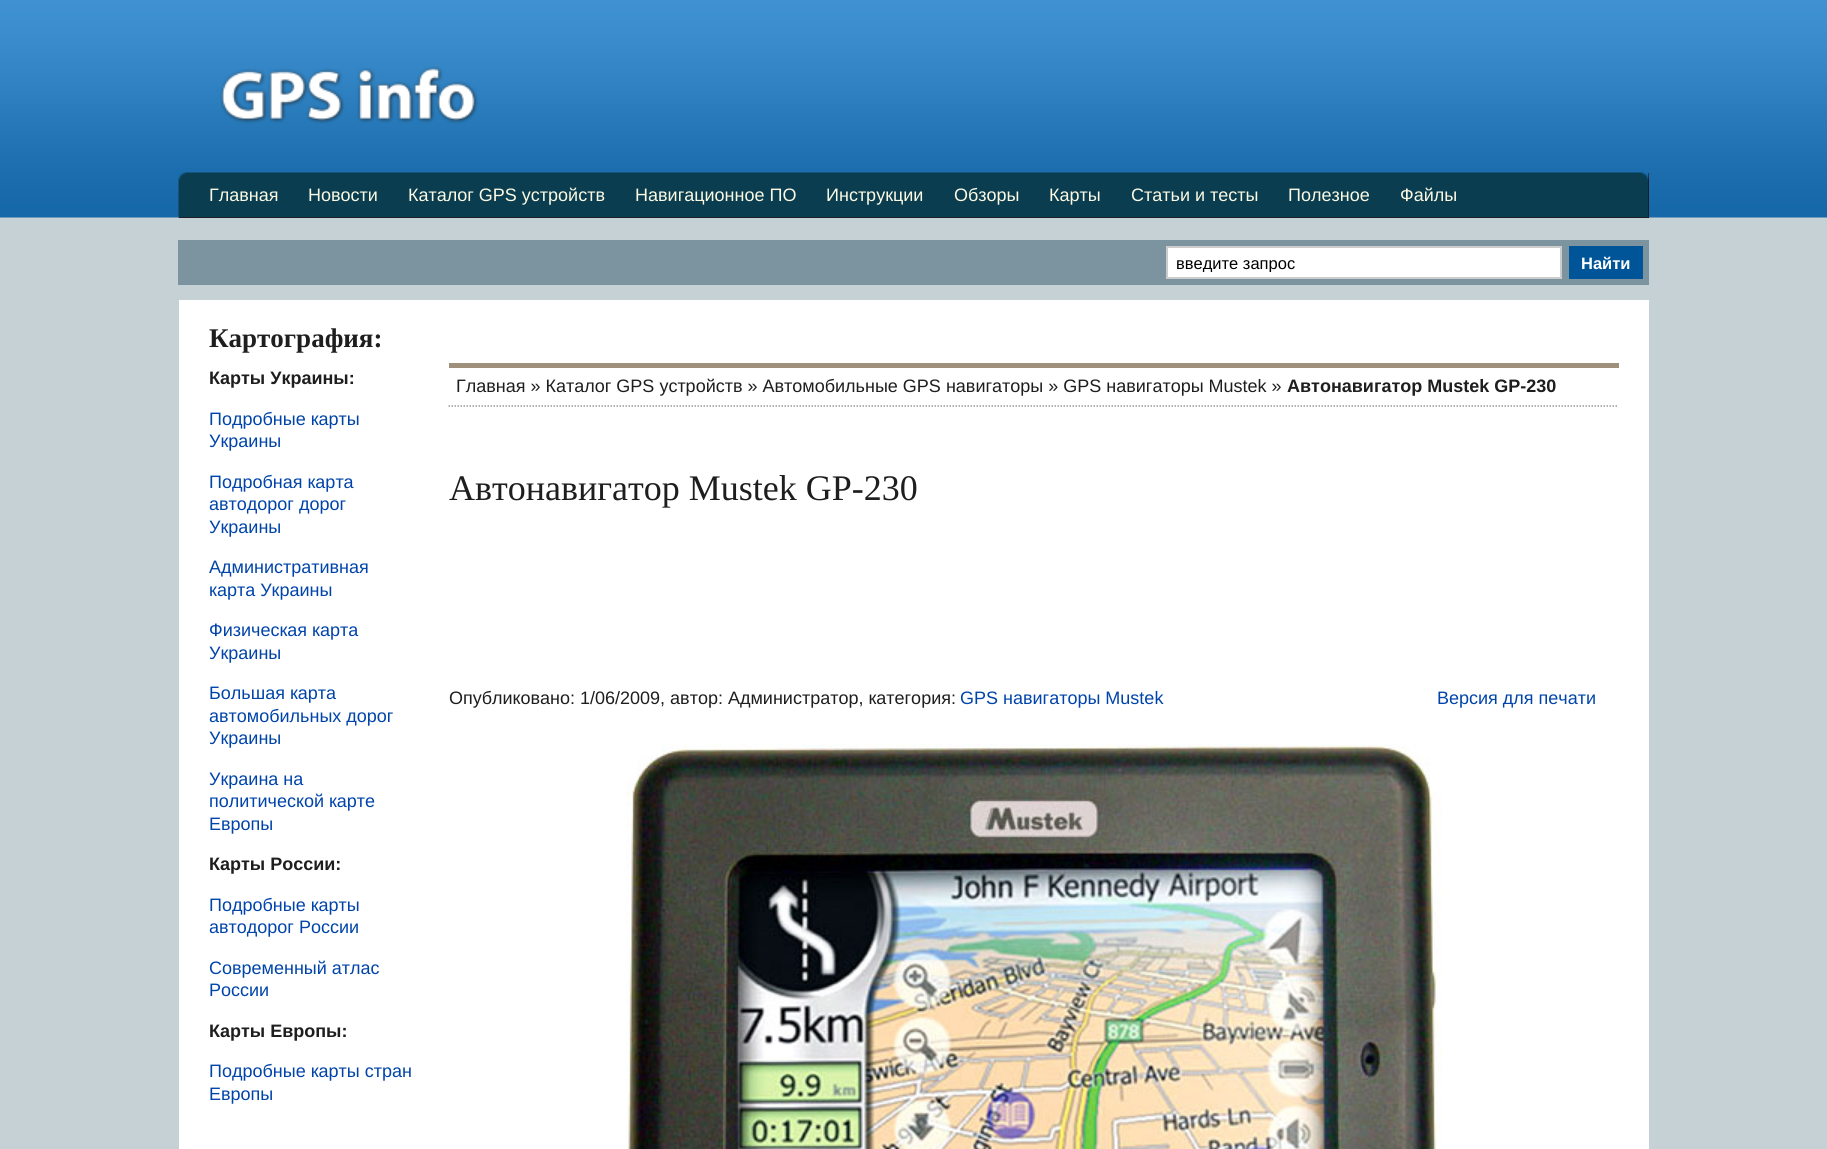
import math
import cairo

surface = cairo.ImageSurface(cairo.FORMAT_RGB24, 1827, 1149)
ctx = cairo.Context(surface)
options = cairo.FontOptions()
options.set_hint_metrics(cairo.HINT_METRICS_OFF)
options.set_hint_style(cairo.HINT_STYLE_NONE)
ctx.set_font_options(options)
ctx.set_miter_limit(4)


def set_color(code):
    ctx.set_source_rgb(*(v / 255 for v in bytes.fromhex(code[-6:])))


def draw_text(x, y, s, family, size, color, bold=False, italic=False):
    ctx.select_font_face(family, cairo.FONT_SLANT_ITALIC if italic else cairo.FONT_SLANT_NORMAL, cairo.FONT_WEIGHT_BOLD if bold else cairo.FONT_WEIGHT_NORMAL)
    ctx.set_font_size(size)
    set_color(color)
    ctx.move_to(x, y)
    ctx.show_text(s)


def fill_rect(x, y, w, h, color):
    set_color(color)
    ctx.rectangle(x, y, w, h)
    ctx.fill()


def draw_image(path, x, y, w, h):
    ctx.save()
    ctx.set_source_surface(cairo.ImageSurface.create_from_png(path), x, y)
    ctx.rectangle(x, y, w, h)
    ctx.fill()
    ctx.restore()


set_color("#c6d1d5")
ctx.paint()
draw_image("assets/img1.png", 0, 0, 1827, 218)
draw_image("assets/img2.png", 220, 66, 259, 58)
fill_rect(179, 173, 1470, 45, "#330100")
draw_image("assets/img3.png", 178, 172, 1471, 46)
draw_text(209, 201, "Главная", "Liberation Sans", 18, "#fcfae3")
draw_text(308, 201, "Новости", "Liberation Sans", 18, "#fcfae3")
draw_text(408, 201, "Каталог GPS устройств", "Liberation Sans", 18, "#fcfae3")
draw_text(635, 201, "Навигационное ПО", "Liberation Sans", 18, "#fcfae3")
draw_text(826, 201, "Инструкции", "Liberation Sans", 18, "#fcfae3")
draw_text(954, 201, "Обзоры", "Liberation Sans", 18, "#fcfae3")
draw_text(1049, 201, "Карты", "Liberation Sans", 18, "#fcfae3")
draw_text(1131, 201, "Статьи и тесты", "Liberation Sans", 18, "#fcfae3")
draw_text(1288, 201, "Полезное", "Liberation Sans", 18, "#fcfae3")
draw_text(1400, 201, "Файлы", "Liberation Sans", 18, "#fcfae3")
fill_rect(178, 240, 1471, 45, "#7c949f")
set_color("#ffffff")
ctx.rectangle(1167, 247, 394, 31)
ctx.fill_preserve()
set_color("#cccccc")
ctx.stroke()
ctx.save()
ctx.rectangle(1176, 254, 375, 18)
ctx.clip()
draw_text(1176, 269, "введите запрос", "Liberation Sans", 16.5, "#000000")
ctx.restore()
fill_rect(1569, 246, 74, 33, "#005599")
draw_text(1581, 269, "Найти", "Liberation Sans", 16.5, "#ffffff", bold=True)
fill_rect(179, 300, 1470, 849, "#ffffff")
draw_text(209, 347, "Картография:", "Liberation Serif", 27, "#1e1e1e", bold=True)
draw_text(209, 384, "Карты Украины:", "Liberation Sans", 18, "#1e1e1e", bold=True)
draw_text(209, 425, "Подробные карты", "Liberation Sans", 18, "#0044aa")
draw_text(209, 447, "Украины", "Liberation Sans", 18, "#0044aa")
draw_text(209, 488, "Подробная карта", "Liberation Sans", 18, "#0044aa")
draw_text(209, 510, "автодорог дорог", "Liberation Sans", 18, "#0044aa")
draw_text(209, 533, "Украины", "Liberation Sans", 18, "#0044aa")
draw_text(209, 573, "Административная", "Liberation Sans", 18, "#0044aa")
draw_text(209, 596, "карта Украины", "Liberation Sans", 18, "#0044aa")
draw_text(209, 636, "Физическая карта", "Liberation Sans", 18, "#0044aa")
draw_text(209, 659, "Украины", "Liberation Sans", 18, "#0044aa")
draw_text(209, 699, "Большая карта", "Liberation Sans", 18, "#0044aa")
draw_text(209, 722, "автомобильных дорог", "Liberation Sans", 18, "#0044aa")
draw_text(209, 744, "Украины", "Liberation Sans", 18, "#0044aa")
draw_text(209, 785, "Украина на", "Liberation Sans", 18, "#0044aa")
draw_text(209, 807, "политической карте", "Liberation Sans", 18, "#0044aa")
draw_text(209, 830, "Европы", "Liberation Sans", 18, "#0044aa")
draw_text(209, 870, "Карты России:", "Liberation Sans", 18, "#1e1e1e", bold=True)
draw_text(209, 911, "Подробные карты", "Liberation Sans", 18, "#0044aa")
draw_text(209, 933, "автодорог России", "Liberation Sans", 18, "#0044aa")
draw_text(209, 974, "Современный атлас", "Liberation Sans", 18, "#0044aa")
draw_text(209, 996, "России", "Liberation Sans", 18, "#0044aa")
draw_text(209, 1037, "Карты Европы:", "Liberation Sans", 18, "#1e1e1e", bold=True)
draw_text(209, 1077, "Подробные карты стран", "Liberation Sans", 18, "#0044aa")
draw_text(209, 1100, "Европы", "Liberation Sans", 18, "#0044aa")
fill_rect(449, 363, 1170, 5, "#9f907c")
ctx.new_path()
ctx.move_to(448.5, 406)
ctx.line_to(1618.5, 406)
set_color("#999999")
ctx.set_line_width(1.5)
ctx.set_dash([1.5, 1.5])
ctx.stroke()
draw_text(456, 392, "Главная » Каталог GPS устройств » Автомобильные GPS навигаторы » GPS навигаторы Mustek »", "Liberation Sans", 18, "#1e1e1e")
draw_text(1287, 392, "Автонавигатор Mustek GP-230", "Liberation Sans", 18, "#1e1e1e", bold=True)
draw_text(449, 500, "Автонавигатор Mustek GP-230", "Liberation Serif", 36, "#1e1e1e")
draw_text(449, 704, "Опубликовано: 1/06/2009, автор: Администратор, категория:", "Liberation Sans", 18, "#1e1e1e")
draw_text(960, 704, "GPS навигаторы Mustek", "Liberation Sans", 18, "#0044aa")
draw_text(1437, 704, "Версия для печати", "Liberation Sans", 18, "#0044aa")
draw_image("assets/img4.png", 626, 744, 816, 405)
surface.write_to_png("output.png")
